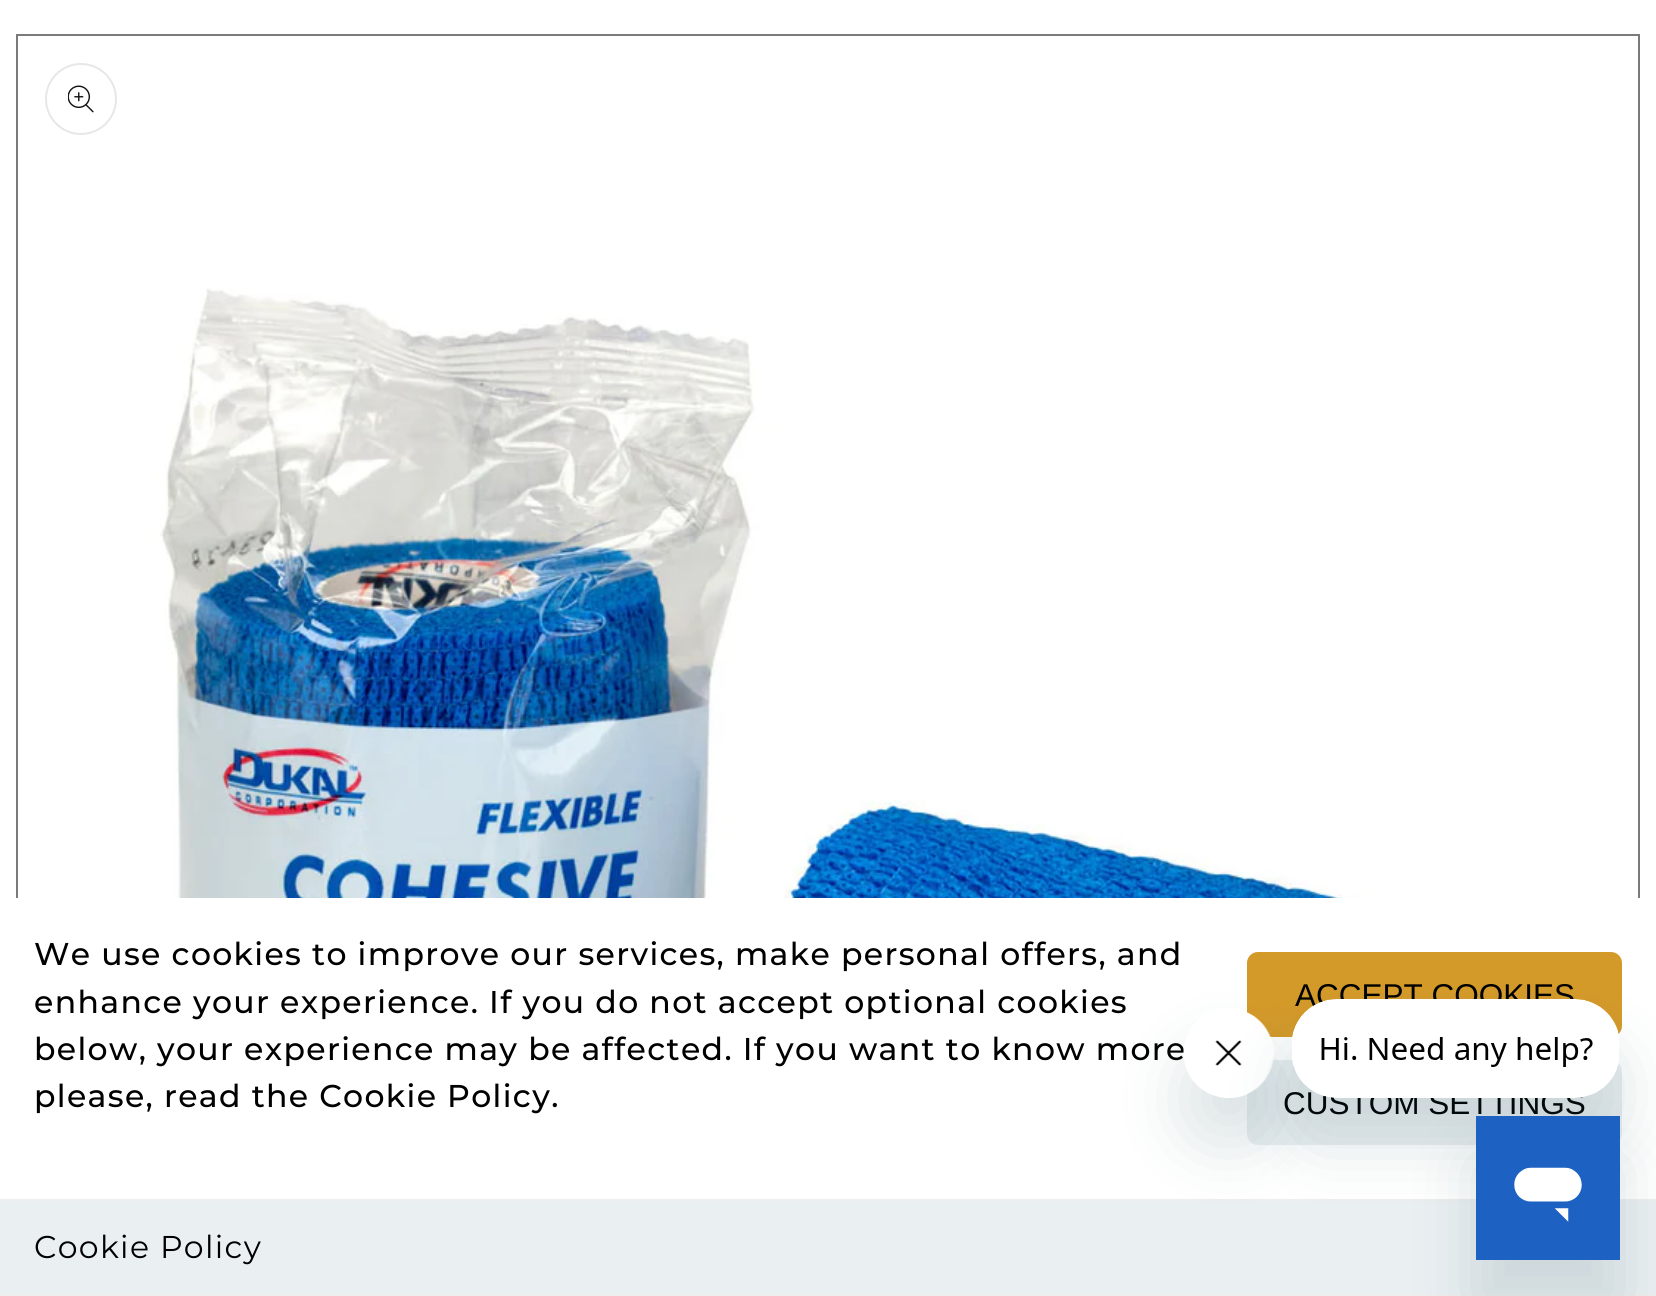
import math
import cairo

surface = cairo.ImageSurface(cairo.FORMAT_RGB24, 1656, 1296)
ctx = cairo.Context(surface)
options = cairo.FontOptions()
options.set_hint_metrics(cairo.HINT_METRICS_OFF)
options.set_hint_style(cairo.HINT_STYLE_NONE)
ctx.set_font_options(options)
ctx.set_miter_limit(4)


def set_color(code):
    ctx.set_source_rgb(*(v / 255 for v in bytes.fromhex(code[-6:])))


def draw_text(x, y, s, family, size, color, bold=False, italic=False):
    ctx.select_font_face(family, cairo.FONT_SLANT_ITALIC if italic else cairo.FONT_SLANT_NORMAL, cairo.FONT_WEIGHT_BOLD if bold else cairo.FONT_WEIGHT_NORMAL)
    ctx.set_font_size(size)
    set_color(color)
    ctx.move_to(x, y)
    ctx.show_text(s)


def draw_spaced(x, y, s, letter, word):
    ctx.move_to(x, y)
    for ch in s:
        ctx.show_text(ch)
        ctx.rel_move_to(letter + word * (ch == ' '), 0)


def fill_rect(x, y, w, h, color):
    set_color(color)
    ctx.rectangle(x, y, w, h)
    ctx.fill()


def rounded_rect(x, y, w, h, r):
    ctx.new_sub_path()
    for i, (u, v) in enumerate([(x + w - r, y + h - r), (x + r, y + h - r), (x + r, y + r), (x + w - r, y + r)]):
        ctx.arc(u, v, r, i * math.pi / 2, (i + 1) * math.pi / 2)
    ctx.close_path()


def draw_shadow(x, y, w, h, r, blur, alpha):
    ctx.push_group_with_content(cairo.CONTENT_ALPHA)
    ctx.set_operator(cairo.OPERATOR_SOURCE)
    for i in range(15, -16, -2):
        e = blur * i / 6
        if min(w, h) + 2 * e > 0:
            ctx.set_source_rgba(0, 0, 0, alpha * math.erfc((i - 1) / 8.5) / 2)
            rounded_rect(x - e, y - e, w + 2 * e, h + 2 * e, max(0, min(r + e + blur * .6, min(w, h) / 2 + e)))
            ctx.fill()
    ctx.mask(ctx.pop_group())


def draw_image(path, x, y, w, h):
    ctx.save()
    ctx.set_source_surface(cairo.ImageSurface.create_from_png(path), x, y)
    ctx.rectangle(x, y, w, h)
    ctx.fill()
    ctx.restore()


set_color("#ffffff")
ctx.paint()
ctx.rectangle(17, 35, 1622, 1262)
set_color("#7b7b7b")
ctx.stroke()
ctx.arc(81, 99, 35, 0, 2 * math.pi)
set_color("#e7e7e7")
ctx.stroke()
draw_image("assets/img1.png", 68, 85, 26, 28)
draw_image("assets/img2.png", 145, 288, 1335, 610)
fill_rect(16, 898, 1624, 301, "#ffffff")
ctx.select_font_face("Montserrat Medium")
ctx.set_font_size(31.5)
set_color("#000000")
draw_spaced(34, 965, "We use cookies to improve our services, make personal offers, and", 1.35, 0)
draw_spaced(34, 1013, "enhance your experience. If you do not accept optional cookies", 1.35, 0)
draw_spaced(34, 1060, "below, your experience may be affected. If you want to know more", 1.35, 0)
draw_spaced(34, 1107, "please, read the Cookie Policy.", 1.35, 0)
set_color("#d49a29")
rounded_rect(1247, 952, 375, 85, 11)
ctx.fill()
draw_text(1295, 1006, "ACCEPT COOKIES", "Liberation Sans", 31.5, "#000000")
set_color("#eaeff2")
rounded_rect(1247, 1060, 375, 85, 11)
ctx.fill()
draw_text(1283, 1114, "CUSTOM SETTINGS", "Liberation Sans", 31.5, "#000000")
fill_rect(0, 1201, 1656, 93, "#eaeff2")
fill_rect(0, 1199, 1656, 2, "#eeeeee")
fill_rect(0, 1294, 1656, 2, "#eeeeee")
ctx.select_font_face("Montserrat")
set_color("#000000")
draw_spaced(34, 1258, "Cookie Policy", 1.35, 0)
ctx.save()
ctx.set_fill_rule(cairo.FILL_RULE_EVEN_ODD)
ctx.new_path()
ctx.move_to(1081, 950)
ctx.line_to(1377, 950)
ctx.line_to(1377, 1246)
ctx.line_to(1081, 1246)
ctx.close_path()
ctx.move_to(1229, 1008)
ctx.curve_to(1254, 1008, 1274, 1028, 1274, 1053)
ctx.curve_to(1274, 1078, 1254, 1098, 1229, 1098)
ctx.curve_to(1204, 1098, 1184, 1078, 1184, 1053)
ctx.curve_to(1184, 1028, 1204, 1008, 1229, 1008)
ctx.close_path()
ctx.clip()
set_color("#17494d")
draw_shadow(1184, 1053, 90, 90, 45, 34, 0.15)
ctx.restore()
draw_image("assets/img4.png", 1183, 1012, 90, 82)
set_color("#17494d")
draw_shadow(1292, 1044, 328, 99, 45, 34, 0.15)
draw_image("assets/img3.png", 1292, 999, 327, 99)
draw_shadow(1476, 1161, 144, 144, 0, 34, 0.15)
draw_image("assets/img5.png", 1476, 1116, 144, 144)
surface.write_to_png("output.png")
